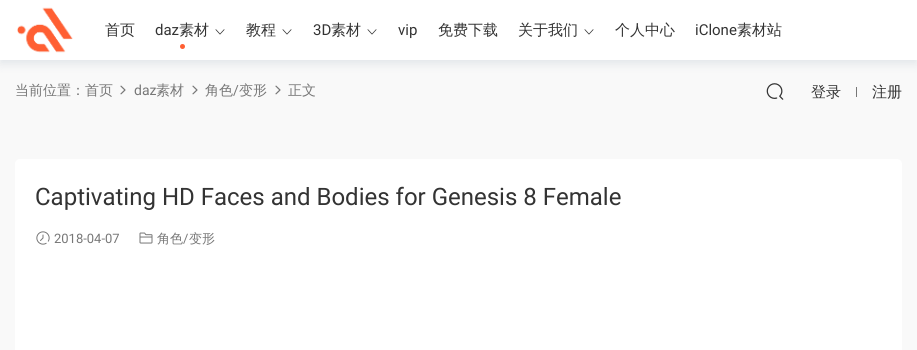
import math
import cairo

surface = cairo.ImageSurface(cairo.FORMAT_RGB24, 917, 350)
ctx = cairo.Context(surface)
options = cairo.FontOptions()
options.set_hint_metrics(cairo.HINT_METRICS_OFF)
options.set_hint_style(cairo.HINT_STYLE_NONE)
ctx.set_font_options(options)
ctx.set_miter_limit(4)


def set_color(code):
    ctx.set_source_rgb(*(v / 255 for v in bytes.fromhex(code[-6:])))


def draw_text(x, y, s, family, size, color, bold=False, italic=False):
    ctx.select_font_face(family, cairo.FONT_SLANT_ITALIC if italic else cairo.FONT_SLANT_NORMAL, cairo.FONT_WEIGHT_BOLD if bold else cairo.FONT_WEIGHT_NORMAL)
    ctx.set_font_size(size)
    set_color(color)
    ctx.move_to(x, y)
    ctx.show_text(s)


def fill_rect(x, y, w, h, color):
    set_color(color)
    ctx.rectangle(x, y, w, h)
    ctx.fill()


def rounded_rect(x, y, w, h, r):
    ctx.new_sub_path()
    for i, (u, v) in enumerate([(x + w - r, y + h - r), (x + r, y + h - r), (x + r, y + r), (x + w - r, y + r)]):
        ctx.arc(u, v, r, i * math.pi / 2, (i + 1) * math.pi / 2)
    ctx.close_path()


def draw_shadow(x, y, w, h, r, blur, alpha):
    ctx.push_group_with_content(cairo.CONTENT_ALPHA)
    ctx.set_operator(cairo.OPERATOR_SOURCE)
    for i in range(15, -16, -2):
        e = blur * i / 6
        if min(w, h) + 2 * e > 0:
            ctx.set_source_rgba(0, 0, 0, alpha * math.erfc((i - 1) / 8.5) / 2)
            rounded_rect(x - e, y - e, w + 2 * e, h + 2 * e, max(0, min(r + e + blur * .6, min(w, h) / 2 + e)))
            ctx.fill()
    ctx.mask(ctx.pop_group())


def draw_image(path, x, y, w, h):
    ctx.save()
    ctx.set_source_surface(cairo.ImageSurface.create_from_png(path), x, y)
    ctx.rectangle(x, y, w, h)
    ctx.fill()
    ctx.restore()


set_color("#f9f9f9")
ctx.paint()
set_color("#113a5d")
draw_shadow(0, 4, 917, 60, 0, 5, 0.1)
fill_rect(0, 0, 917, 60, "#ffffff")
draw_image("assets/img1.png", 17, 7, 56, 46)
draw_text(105, 35, "首页", "WenQuanYi Zen Hei Medium", 15, "#333333")
draw_text(155, 35, "daz", "Roboto", 15, "#333333")
draw_text(179, 35, "素材", "WenQuanYi Zen Hei Medium", 15, "#333333")
set_color("#ff5f33")
ctx.new_path()
ctx.arc(182.5, 46.5, 2.5, 0, 2 * math.pi)
ctx.fill()
draw_image("assets/img2.png", 215, 29, 10, 6)
draw_text(246, 35, "教程", "WenQuanYi Zen Hei Medium", 15, "#333333")
draw_image("assets/img2.png", 282, 29, 10, 6)
draw_text(313, 35, "3D", "Roboto", 15, "#333333")
draw_text(331, 35, "素材", "WenQuanYi Zen Hei Medium", 15, "#333333")
draw_image("assets/img2.png", 367, 29, 10, 6)
draw_text(398, 35, "vip", "Roboto", 15, "#333333")
draw_text(438, 35, "免费下载", "WenQuanYi Zen Hei Medium", 15, "#333333")
draw_text(518, 35, "关于我们", "WenQuanYi Zen Hei Medium", 15, "#333333")
draw_image("assets/img2.png", 584, 29, 10, 6)
draw_text(615, 35, "个人中心", "WenQuanYi Zen Hei Medium", 15, "#333333")
draw_text(695, 35, "iClone", "Roboto", 15, "#333333")
draw_text(737, 35, "素材站", "WenQuanYi Zen Hei Medium", 15, "#333333")
draw_image("assets/img3.png", 766, 83, 18, 17)
draw_text(811, 97, "登录", "WenQuanYi Zen Hei Medium", 15, "#333333")
fill_rect(856, 87, 1, 10, "#777777")
draw_text(872, 97, "注册", "WenQuanYi Zen Hei Medium", 15, "#333333")
draw_text(15, 95, "当前位置：首页", "WenQuanYi Zen Hei Medium", 14, "#777777")
draw_image("assets/img4.png", 120, 85, 6, 10)
draw_text(134, 95, "daz", "Roboto", 14, "#777777")
draw_text(156, 95, "素材", "WenQuanYi Zen Hei Medium", 14, "#777777")
draw_image("assets/img4.png", 192, 85, 6, 10)
draw_text(205, 95, "角色", "WenQuanYi Zen Hei Medium", 14, "#777777")
draw_text(233, 95, "/", "Roboto", 14, "#777777")
draw_text(239, 95, "变形", "WenQuanYi Zen Hei Medium", 14, "#777777")
draw_image("assets/img4.png", 275, 85, 6, 10)
draw_text(288, 95, "正文", "WenQuanYi Zen Hei Medium", 14, "#777777")
set_color("#ffffff")
rounded_rect(15, 159, 887, 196, 5)
ctx.fill()
draw_text(35, 205, "Captivating HD Faces and Bodies for Genesis 8 Female", "Roboto", 24, "#333333")
draw_image("assets/img5.png", 36, 231, 14, 14)
draw_text(54, 243, "2018-04-07", "Roboto", 13, "#777777")
draw_image("assets/img6.png", 139, 232, 14, 12)
draw_text(157, 243, "角色", "WenQuanYi Zen Hei Medium", 13, "#777777")
draw_text(183, 243, "/", "Roboto", 13, "#777777")
draw_text(189, 243, "变形", "WenQuanYi Zen Hei Medium", 13, "#777777")
surface.write_to_png("output.png")
